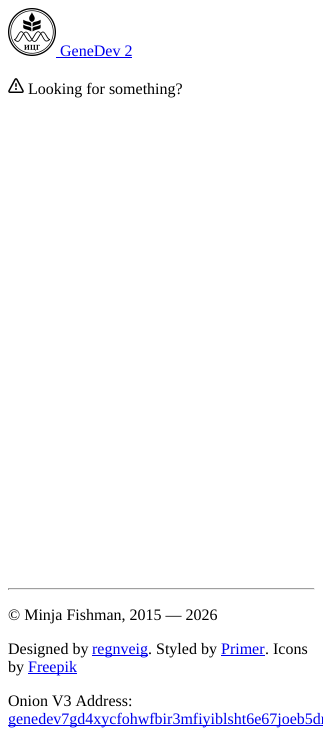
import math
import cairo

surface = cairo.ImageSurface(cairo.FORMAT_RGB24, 323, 743)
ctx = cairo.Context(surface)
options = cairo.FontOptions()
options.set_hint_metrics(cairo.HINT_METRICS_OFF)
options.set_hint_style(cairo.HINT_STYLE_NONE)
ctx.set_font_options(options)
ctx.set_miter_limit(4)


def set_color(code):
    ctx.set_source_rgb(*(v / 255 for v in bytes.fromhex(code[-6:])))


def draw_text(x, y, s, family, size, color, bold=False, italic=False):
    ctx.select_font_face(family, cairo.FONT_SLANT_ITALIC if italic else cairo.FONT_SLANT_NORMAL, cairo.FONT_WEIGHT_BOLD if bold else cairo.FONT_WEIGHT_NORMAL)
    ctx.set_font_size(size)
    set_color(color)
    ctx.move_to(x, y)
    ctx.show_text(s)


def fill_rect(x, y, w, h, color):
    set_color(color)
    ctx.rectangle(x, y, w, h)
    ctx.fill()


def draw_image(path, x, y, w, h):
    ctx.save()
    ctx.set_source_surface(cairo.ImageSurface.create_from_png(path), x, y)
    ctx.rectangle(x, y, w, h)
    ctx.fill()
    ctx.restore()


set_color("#ffffff")
ctx.paint()
draw_image("assets/img1.png", 8, 8, 48, 48)
draw_text(60, 56, "GeneDev 2", "Liberation Serif", 16, "#0000ee")
fill_rect(56, 57, 76, 1, "#0000ee")
draw_image("assets/img2.png", 8, 78, 16, 15)
draw_text(28, 94, "Looking for something?", "Liberation Serif", 16, "#000000")
fill_rect(8, 588, 307, 1, "#9f9f9f")
fill_rect(314, 588, 1, 2, "#eeeeee")
fill_rect(8, 589, 307, 1, "#eeeeee")
fill_rect(8, 588, 1, 2, "#9f9f9f")
draw_text(8, 620, "© Minja Fishman, 2015 — 2026", "Liberation Serif", 16, "#000000")
draw_text(8, 654, "Designed by", "Liberation Serif", 16, "#000000")
fill_rect(92, 655, 56, 1, "#0000ee")
draw_text(92, 654, "regnveig", "Liberation Serif", 16, "#0000ee")
draw_text(148, 654, ". Styled by", "Liberation Serif", 16, "#000000")
draw_text(221, 654, "Primer", "Liberation Serif", 16, "#0000ee")
fill_rect(221, 655, 44, 1, "#0000ee")
draw_text(265, 654, ". Icons", "Liberation Serif", 16, "#000000")
draw_text(8, 672, "by", "Liberation Serif", 16, "#000000")
fill_rect(28, 673, 49, 1, "#0000ee")
draw_text(28, 672, "Freepik", "Liberation Serif", 16, "#0000ee")
draw_text(8, 706, "Onion V3 Address:", "Liberation Serif", 16, "#000000")
fill_rect(8, 725, 315, 1, "#0000ee")
draw_text(8, 724, "genedev7gd4xycfohwfbir3mfiyiblsht6e67joeb5dn", "Liberation Serif", 16, "#0000ee")
surface.write_to_png("output.png")
